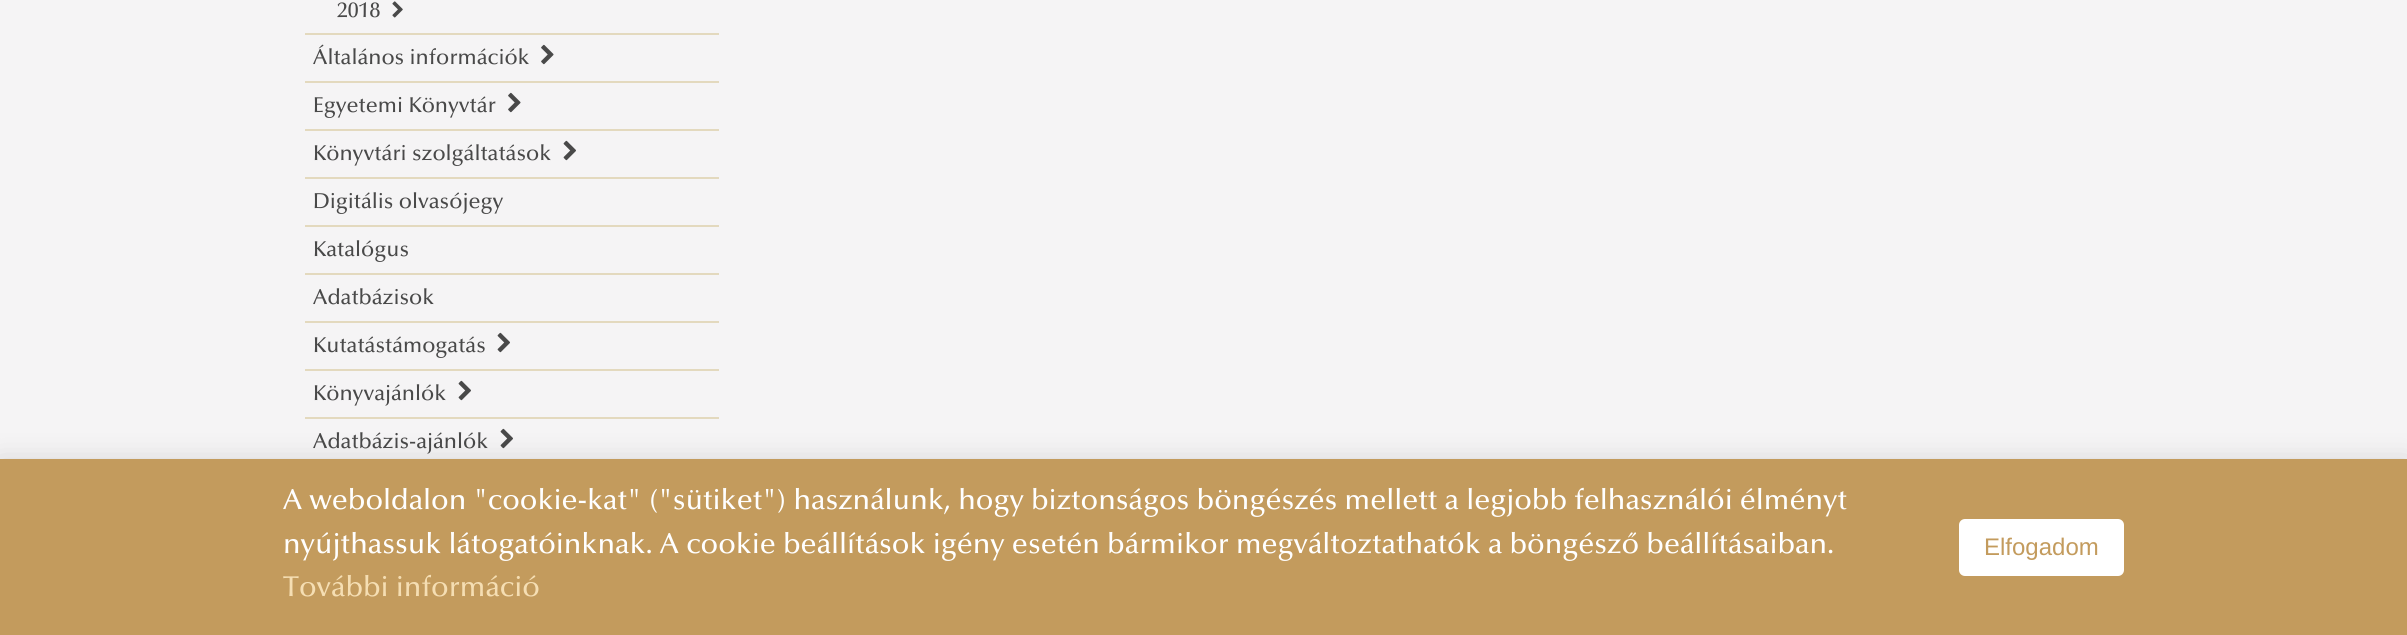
import math
import cairo

surface = cairo.ImageSurface(cairo.FORMAT_RGB24, 2407, 635)
ctx = cairo.Context(surface)
options = cairo.FontOptions()
options.set_hint_metrics(cairo.HINT_METRICS_OFF)
options.set_hint_style(cairo.HINT_STYLE_NONE)
ctx.set_font_options(options)
ctx.set_miter_limit(4)


def set_color(code):
    ctx.set_source_rgb(*(v / 255 for v in bytes.fromhex(code[-6:])))


def draw_text(x, y, s, family, size, color, bold=False, italic=False):
    ctx.select_font_face(family, cairo.FONT_SLANT_ITALIC if italic else cairo.FONT_SLANT_NORMAL, cairo.FONT_WEIGHT_BOLD if bold else cairo.FONT_WEIGHT_NORMAL)
    ctx.set_font_size(size)
    set_color(color)
    ctx.move_to(x, y)
    ctx.show_text(s)


def fill_rect(x, y, w, h, color):
    set_color(color)
    ctx.rectangle(x, y, w, h)
    ctx.fill()


def rounded_rect(x, y, w, h, r):
    ctx.new_sub_path()
    for i, (u, v) in enumerate([(x + w - r, y + h - r), (x + r, y + h - r), (x + r, y + r), (x + w - r, y + r)]):
        ctx.arc(u, v, r, i * math.pi / 2, (i + 1) * math.pi / 2)
    ctx.close_path()


def draw_shadow(x, y, w, h, r, blur, alpha):
    ctx.push_group_with_content(cairo.CONTENT_ALPHA)
    ctx.set_operator(cairo.OPERATOR_SOURCE)
    for i in range(15, -16, -2):
        e = blur * i / 6
        if min(w, h) + 2 * e > 0:
            ctx.set_source_rgba(0, 0, 0, alpha * math.erfc((i - 1) / 8.5) / 2)
            rounded_rect(x - e, y - e, w + 2 * e, h + 2 * e, max(0, min(r + e + blur * .6, min(w, h) / 2 + e)))
            ctx.fill()
    ctx.mask(ctx.pop_group())


def draw_image(path, x, y, w, h):
    ctx.save()
    ctx.set_source_surface(cairo.ImageSurface.create_from_png(path), x, y)
    ctx.rectangle(x, y, w, h)
    ctx.fill()
    ctx.restore()


set_color("#f5f4f5")
ctx.paint()
draw_text(337, 17, "2018", "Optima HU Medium", 21.6, "#494949")
draw_image("assets/img1.png", 392, 1, 11, 17)
fill_rect(305, 33, 414, 2, "#e3d9be")
draw_text(313, 64, "Általános információk", "Optima HU Medium", 21.6, "#494949")
draw_image("assets/img2.png", 541, 44, 13, 21)
fill_rect(305, 81, 414, 2, "#e3d9be")
draw_text(313, 112, "Egyetemi Könyvtár", "Optima HU Medium", 21.6, "#494949")
draw_image("assets/img2.png", 508, 92, 13, 21)
fill_rect(305, 129, 414, 2, "#e3d9be")
draw_text(313, 160, "Könyvtári szolgáltatások", "Optima HU Medium", 21.6, "#494949")
draw_image("assets/img3.png", 563, 140, 13, 21)
fill_rect(305, 177, 414, 2, "#e3d9be")
draw_text(313, 208, "Digitális olvasójegy", "Optima HU Medium", 21.6, "#494949")
fill_rect(305, 225, 414, 2, "#e3d9be")
draw_text(313, 256, "Katalógus", "Optima HU Medium", 21.6, "#494949")
fill_rect(305, 273, 414, 2, "#e3d9be")
draw_text(313, 304, "Adatbázisok", "Optima HU Medium", 21.6, "#494949")
fill_rect(305, 321, 414, 2, "#e3d9be")
draw_text(313, 352, "Kutatástámogatás", "Optima HU Medium", 21.6, "#494949")
draw_image("assets/img3.png", 497, 332, 13, 21)
fill_rect(305, 369, 414, 2, "#e3d9be")
draw_text(313, 400, "Könyvajánlók", "Optima HU Medium", 21.6, "#494949")
draw_image("assets/img3.png", 458, 380, 13, 21)
fill_rect(305, 417, 414, 2, "#e3d9be")
draw_text(313, 448, "Adatbázis-ajánlók", "Optima HU Medium", 21.6, "#494949")
draw_image("assets/img3.png", 500, 428, 13, 21)
set_color("#000000")
draw_shadow(0, 465, 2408, 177, 0, 15, 0.18)
fill_rect(0, 459, 2407, 176, "#c39b5d")
draw_text(283, 509, "A weboldalon \"cookie-kat\" (\"sütiket\") használunk, hogy biztonságos böngészés mellett a legjobb felhasználói élményt", "Optima HU Medium", 28.8, "#ffffff")
draw_text(283, 553, "nyújthassuk látogatóinknak. A cookie beállítások igény esetén bármikor megváltoztathatók a böngésző beállításaiban.", "Optima HU Medium", 28.8, "#ffffff")
draw_text(283, 596, "További információ", "Optima HU Medium", 28.8, "#f5deb3")
set_color("#ffffff")
rounded_rect(1959, 519, 165, 57, 6)
ctx.fill()
draw_text(1984, 555, "Elfogadom", "Liberation Sans", 24, "#c39b5d")
surface.write_to_png("output.png")
